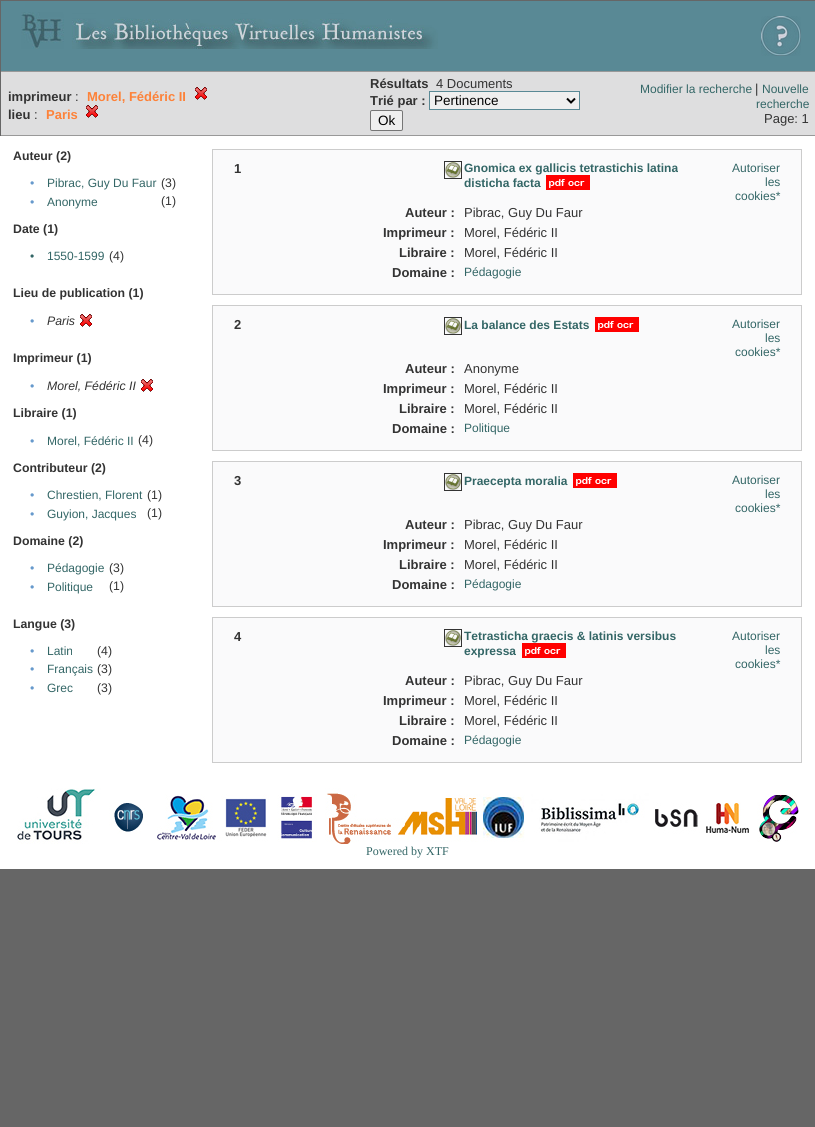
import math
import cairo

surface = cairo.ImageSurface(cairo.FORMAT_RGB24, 815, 1127)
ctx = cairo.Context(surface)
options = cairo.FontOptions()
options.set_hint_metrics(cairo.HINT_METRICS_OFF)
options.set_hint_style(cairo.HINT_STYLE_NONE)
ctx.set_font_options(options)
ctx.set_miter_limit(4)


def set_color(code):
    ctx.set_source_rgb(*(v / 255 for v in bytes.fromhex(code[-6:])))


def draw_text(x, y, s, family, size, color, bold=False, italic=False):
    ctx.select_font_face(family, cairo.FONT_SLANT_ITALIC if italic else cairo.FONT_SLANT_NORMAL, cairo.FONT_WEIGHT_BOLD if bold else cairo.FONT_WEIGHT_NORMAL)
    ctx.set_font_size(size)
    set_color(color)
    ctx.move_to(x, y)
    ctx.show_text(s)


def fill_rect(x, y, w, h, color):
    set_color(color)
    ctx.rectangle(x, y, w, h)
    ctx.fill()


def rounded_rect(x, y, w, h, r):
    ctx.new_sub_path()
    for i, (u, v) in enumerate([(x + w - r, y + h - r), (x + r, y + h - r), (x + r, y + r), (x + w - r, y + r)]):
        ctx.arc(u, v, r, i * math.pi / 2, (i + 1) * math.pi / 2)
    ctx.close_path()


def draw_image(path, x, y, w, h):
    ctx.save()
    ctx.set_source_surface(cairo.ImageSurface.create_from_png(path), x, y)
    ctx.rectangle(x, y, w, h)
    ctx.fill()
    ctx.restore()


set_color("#666666")
ctx.paint()
fill_rect(1, 1, 814, 70, "#598995")
draw_image("assets/img1.png", 21, 12, 417, 37)
draw_image("assets/img2.png", 761, 16, 40, 40)
fill_rect(1, 72, 814, 63, "#dededf")
fill_rect(0, 71, 815, 1, "#999999")
fill_rect(0, 135, 815, 1, "#999999")
fill_rect(0, 71, 1, 65, "#666666")
draw_text(8, 101, "imprimeur", "Liberation Sans", 13, "#333333", bold=True)
draw_text(75, 101, ":", "Liberation Sans", 13, "#333333")
draw_text(87, 101, "Morel, Fédéric II", "Liberation Sans", 13, "#fd8239", bold=True)
draw_image("assets/img3.png", 195, 87, 12, 13)
draw_text(8, 119, "lieu", "Liberation Sans", 13, "#333333", bold=True)
draw_text(34, 119, ":", "Liberation Sans", 13, "#333333")
draw_text(46, 119, "Paris", "Liberation Sans", 13, "#fd8239", bold=True)
draw_image("assets/img3.png", 86, 105, 12, 13)
draw_text(370, 88, "Résultats", "Liberation Sans", 13, "#333333", bold=True)
draw_text(436, 88, "4 Documents", "Liberation Sans", 13, "#333333")
draw_text(370, 105, "Trié par :", "Liberation Sans", 13, "#333333", bold=True)
set_color("#efefef")
ctx.rectangle(429.5, 91.5, 150, 18)
ctx.fill_preserve()
set_color("#598995")
ctx.set_line_width(1)
ctx.stroke()
ctx.new_path()
ctx.move_to(567, 98.5)
ctx.line_to(571, 102.5)
ctx.line_to(575, 98.5)
set_color("#000000")
ctx.set_line_width(2)
ctx.stroke()
draw_text(434, 105, "Pertinence", "Liberation Sans", 13.5, "#000000")
set_color("#efefef")
rounded_rect(370.5, 110.5, 32, 20, 1.5)
ctx.fill_preserve()
set_color("#767676")
ctx.set_line_width(1)
ctx.stroke()
draw_text(378, 125, "Ok", "Liberation Sans", 13.5, "#000000")
draw_text(640, 93, "Modifier la recherche", "Liberation Sans", 12, "#336666")
draw_text(755, 93, "|", "Liberation Sans", 13, "#333333")
draw_text(762, 93, "Nouvelle", "Liberation Sans", 12, "#336666")
draw_text(756, 108, "recherche", "Liberation Sans", 12, "#336666")
draw_text(764, 123, "Page: 1", "Liberation Sans", 13, "#333333")
fill_rect(0, 136, 815, 733, "#ffffff")
draw_text(13, 160, "Auteur (2)", "Liberation Sans", 12.3, "#333333", bold=True)
draw_text(30, 187, "•", "Liberation Sans", 12.3, "#6699cc")
draw_text(47, 187, "Pibrac, Guy Du Faur", "Liberation Sans", 12, "#336666")
draw_text(161, 187, "(3)", "Liberation Sans", 12.3, "#333333")
draw_text(30, 206, "•", "Liberation Sans", 12.3, "#6699cc")
draw_text(47, 206, "Anonyme", "Liberation Sans", 12, "#336666")
draw_text(161, 205, "(1)", "Liberation Sans", 12.3, "#333333")
draw_text(13, 233, "Date (1)", "Liberation Sans", 12.3, "#333333", bold=True)
draw_text(30, 260, "•", "Liberation Sans", 12, "#336666")
draw_text(47, 260, "1550-1599", "Liberation Sans", 12, "#336666")
draw_text(109, 260, "(4)", "Liberation Sans", 12.3, "#333333")
draw_text(13, 297, "Lieu de publication (1)", "Liberation Sans", 12.3, "#333333", bold=True)
draw_text(30, 325, "•", "Liberation Sans", 12.3, "#6699cc")
draw_text(47, 325, "Paris", "Liberation Sans", 12.3, "#333333", italic=True)
draw_image("assets/img4.png", 80, 314, 12, 13)
draw_text(13, 362, "Imprimeur (1)", "Liberation Sans", 12.3, "#333333", bold=True)
draw_text(30, 390, "•", "Liberation Sans", 12.3, "#6699cc")
draw_text(47, 390, "Morel, Fédéric II", "Liberation Sans", 12.3, "#333333", italic=True)
draw_image("assets/img4.png", 141, 379, 12, 13)
draw_text(13, 417, "Libraire (1)", "Liberation Sans", 12.3, "#333333", bold=True)
draw_text(30, 445, "•", "Liberation Sans", 12.3, "#6699cc")
draw_text(47, 445, "Morel, Fédéric II", "Liberation Sans", 12, "#336666")
draw_text(138, 444, "(4)", "Liberation Sans", 12.3, "#333333")
draw_text(13, 472, "Contributeur (2)", "Liberation Sans", 12.3, "#333333", bold=True)
draw_text(30, 499, "•", "Liberation Sans", 12.3, "#6699cc")
draw_text(47, 499, "Chrestien, Florent", "Liberation Sans", 12, "#336666")
draw_text(147, 499, "(1)", "Liberation Sans", 12.3, "#333333")
draw_text(30, 518, "•", "Liberation Sans", 12.3, "#6699cc")
draw_text(47, 518, "Guyion, Jacques", "Liberation Sans", 12, "#336666")
draw_text(147, 517, "(1)", "Liberation Sans", 12.3, "#333333")
draw_text(13, 545, "Domaine (2)", "Liberation Sans", 12.3, "#333333", bold=True)
draw_text(30, 572, "•", "Liberation Sans", 12.3, "#6699cc")
draw_text(47, 572, "Pédagogie", "Liberation Sans", 12, "#336666")
draw_text(109, 572, "(3)", "Liberation Sans", 12.3, "#333333")
draw_text(30, 591, "•", "Liberation Sans", 12.3, "#6699cc")
draw_text(47, 591, "Politique", "Liberation Sans", 12, "#336666")
draw_text(109, 590, "(1)", "Liberation Sans", 12.3, "#333333")
draw_text(13, 628, "Langue (3)", "Liberation Sans", 12.3, "#333333", bold=True)
draw_text(30, 655, "•", "Liberation Sans", 12.3, "#6699cc")
draw_text(47, 655, "Latin", "Liberation Sans", 12, "#336666")
draw_text(97, 655, "(4)", "Liberation Sans", 12.3, "#333333")
draw_text(30, 673, "•", "Liberation Sans", 12.3, "#6699cc")
draw_text(47, 673, "Français", "Liberation Sans", 12, "#336666")
draw_text(97, 673, "(3)", "Liberation Sans", 12.3, "#333333")
draw_text(30, 692, "•", "Liberation Sans", 12.3, "#6699cc")
draw_text(47, 692, "Grec", "Liberation Sans", 12, "#336666")
draw_text(97, 692, "(3)", "Liberation Sans", 12.3, "#333333")
set_color("#fafafb")
ctx.rectangle(212.5, 149.5, 589, 145)
ctx.fill_preserve()
set_color("#cccccc")
ctx.stroke()
draw_text(234, 173, "1", "Liberation Sans", 13, "#333333", bold=True)
ctx.rectangle(444.5, 161.5, 17, 17)
ctx.stroke()
draw_image("assets/img5.png", 445, 162, 16, 16)
draw_text(464, 172, "Gnomica ex gallicis tetrastichis latina", "Liberation Sans", 12, "#336666", bold=True)
draw_text(464, 187, "disticha facta", "Liberation Sans", 12, "#336666", bold=True)
draw_image("assets/img6.png", 546, 175, 44, 15)
draw_text(732, 172, "Autoriser", "Liberation Sans", 12, "#336666")
draw_text(765, 186, "les", "Liberation Sans", 12, "#336666")
draw_text(735, 200, "cookies*", "Liberation Sans", 12, "#336666")
draw_text(405, 217, "Auteur :", "Liberation Sans", 13, "#333333", bold=True)
draw_text(464, 217, "Pibrac, Guy Du Faur", "Liberation Sans", 13, "#333333")
draw_text(383, 237, "Imprimeur :", "Liberation Sans", 13, "#333333", bold=True)
draw_text(464, 237, "Morel, Fédéric II", "Liberation Sans", 13, "#333333")
draw_text(399, 257, "Libraire :", "Liberation Sans", 13, "#333333", bold=True)
draw_text(464, 257, "Morel, Fédéric II", "Liberation Sans", 13, "#333333")
draw_text(392, 277, "Domaine :", "Liberation Sans", 13, "#333333", bold=True)
draw_text(464, 276, "Pédagogie", "Liberation Sans", 12, "#336666")
set_color("#fafafb")
ctx.rectangle(212.5, 305.5, 589, 145)
ctx.fill_preserve()
set_color("#cccccc")
ctx.stroke()
draw_text(234, 329, "2", "Liberation Sans", 13, "#333333", bold=True)
ctx.rectangle(444.5, 317.5, 17, 17)
ctx.stroke()
draw_image("assets/img5.png", 445, 318, 16, 16)
draw_text(464, 329, "La balance des Estats", "Liberation Sans", 12, "#336666", bold=True)
draw_image("assets/img6.png", 595, 317, 44, 15)
draw_text(732, 328, "Autoriser", "Liberation Sans", 12, "#336666")
draw_text(765, 342, "les", "Liberation Sans", 12, "#336666")
draw_text(735, 356, "cookies*", "Liberation Sans", 12, "#336666")
draw_text(405, 373, "Auteur :", "Liberation Sans", 13, "#333333", bold=True)
draw_text(464, 373, "Anonyme", "Liberation Sans", 13, "#333333")
draw_text(383, 393, "Imprimeur :", "Liberation Sans", 13, "#333333", bold=True)
draw_text(464, 393, "Morel, Fédéric II", "Liberation Sans", 13, "#333333")
draw_text(399, 413, "Libraire :", "Liberation Sans", 13, "#333333", bold=True)
draw_text(464, 413, "Morel, Fédéric II", "Liberation Sans", 13, "#333333")
draw_text(392, 433, "Domaine :", "Liberation Sans", 13, "#333333", bold=True)
draw_text(464, 432, "Politique", "Liberation Sans", 12, "#336666")
set_color("#fafafb")
ctx.rectangle(212.5, 461.5, 589, 145)
ctx.fill_preserve()
set_color("#cccccc")
ctx.stroke()
draw_text(234, 485, "3", "Liberation Sans", 13, "#333333", bold=True)
ctx.rectangle(444.5, 473.5, 17, 17)
ctx.stroke()
draw_image("assets/img5.png", 445, 474, 16, 16)
draw_text(464, 485, "Praecepta moralia", "Liberation Sans", 12, "#336666", bold=True)
draw_image("assets/img6.png", 573, 473, 44, 15)
draw_text(732, 484, "Autoriser", "Liberation Sans", 12, "#336666")
draw_text(765, 498, "les", "Liberation Sans", 12, "#336666")
draw_text(735, 512, "cookies*", "Liberation Sans", 12, "#336666")
draw_text(405, 529, "Auteur :", "Liberation Sans", 13, "#333333", bold=True)
draw_text(464, 529, "Pibrac, Guy Du Faur", "Liberation Sans", 13, "#333333")
draw_text(383, 549, "Imprimeur :", "Liberation Sans", 13, "#333333", bold=True)
draw_text(464, 549, "Morel, Fédéric II", "Liberation Sans", 13, "#333333")
draw_text(399, 569, "Libraire :", "Liberation Sans", 13, "#333333", bold=True)
draw_text(464, 569, "Morel, Fédéric II", "Liberation Sans", 13, "#333333")
draw_text(392, 589, "Domaine :", "Liberation Sans", 13, "#333333", bold=True)
draw_text(464, 588, "Pédagogie", "Liberation Sans", 12, "#336666")
set_color("#fafafb")
ctx.rectangle(212.5, 617.5, 589, 145)
ctx.fill_preserve()
set_color("#cccccc")
ctx.stroke()
draw_text(234, 641, "4", "Liberation Sans", 13, "#333333", bold=True)
ctx.rectangle(444.5, 629.5, 17, 17)
ctx.stroke()
draw_image("assets/img5.png", 445, 630, 16, 16)
draw_text(464, 640, "Tetrasticha graecis & latinis versibus", "Liberation Sans", 12, "#336666", bold=True)
draw_text(464, 655, "expressa", "Liberation Sans", 12, "#336666", bold=True)
draw_image("assets/img6.png", 522, 643, 44, 15)
draw_text(732, 640, "Autoriser", "Liberation Sans", 12, "#336666")
draw_text(765, 654, "les", "Liberation Sans", 12, "#336666")
draw_text(735, 668, "cookies*", "Liberation Sans", 12, "#336666")
draw_text(405, 685, "Auteur :", "Liberation Sans", 13, "#333333", bold=True)
draw_text(464, 685, "Pibrac, Guy Du Faur", "Liberation Sans", 13, "#333333")
draw_text(383, 705, "Imprimeur :", "Liberation Sans", 13, "#333333", bold=True)
draw_text(464, 705, "Morel, Fédéric II", "Liberation Sans", 13, "#333333")
draw_text(399, 725, "Libraire :", "Liberation Sans", 13, "#333333", bold=True)
draw_text(464, 725, "Morel, Fédéric II", "Liberation Sans", 13, "#333333")
draw_text(392, 745, "Domaine :", "Liberation Sans", 13, "#333333", bold=True)
draw_text(464, 744, "Pédagogie", "Liberation Sans", 12, "#336666")
draw_image("assets/img7.png", 17, 788, 782, 56)
draw_text(366, 855, "Powered by XTF", "Liberation Serif", 12, "#336666")
surface.write_to_png("output.png")
